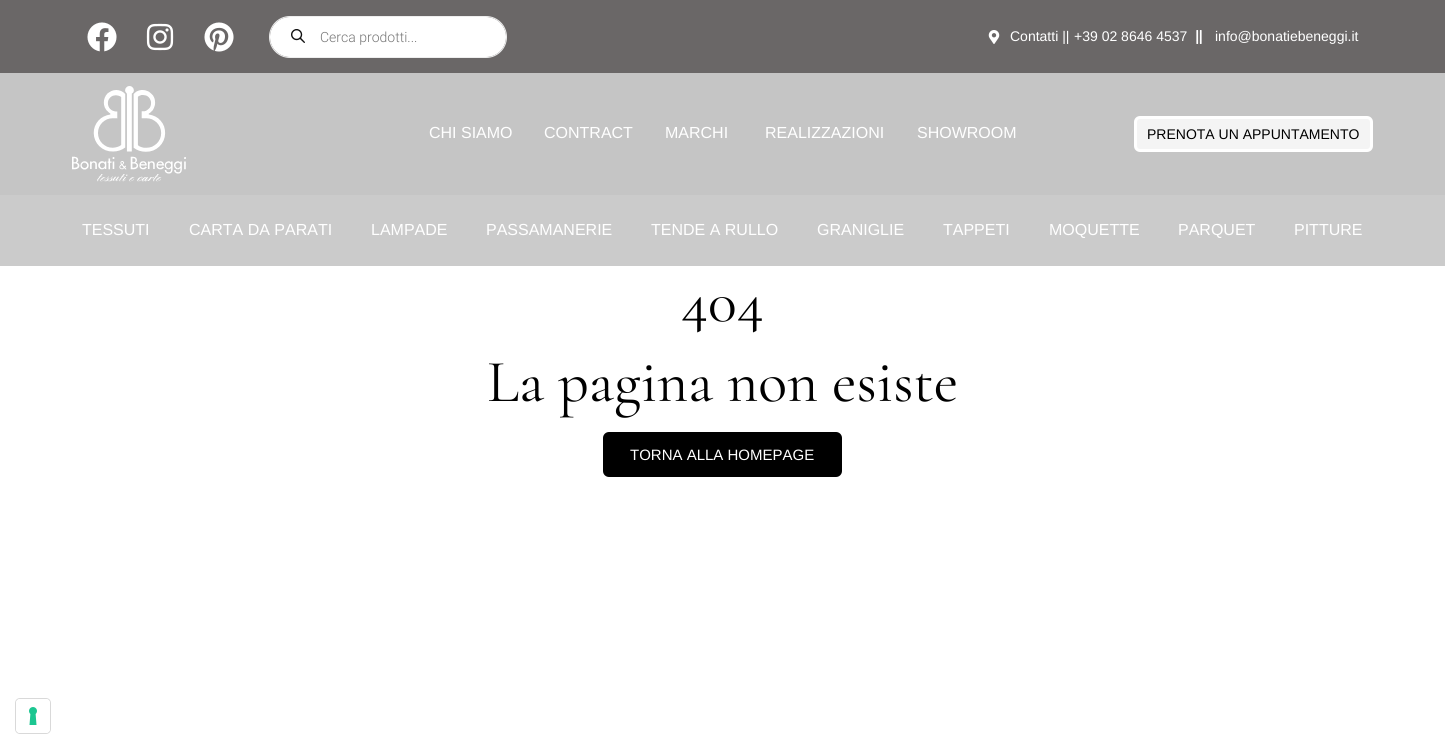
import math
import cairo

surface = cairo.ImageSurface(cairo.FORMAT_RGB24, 1445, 749)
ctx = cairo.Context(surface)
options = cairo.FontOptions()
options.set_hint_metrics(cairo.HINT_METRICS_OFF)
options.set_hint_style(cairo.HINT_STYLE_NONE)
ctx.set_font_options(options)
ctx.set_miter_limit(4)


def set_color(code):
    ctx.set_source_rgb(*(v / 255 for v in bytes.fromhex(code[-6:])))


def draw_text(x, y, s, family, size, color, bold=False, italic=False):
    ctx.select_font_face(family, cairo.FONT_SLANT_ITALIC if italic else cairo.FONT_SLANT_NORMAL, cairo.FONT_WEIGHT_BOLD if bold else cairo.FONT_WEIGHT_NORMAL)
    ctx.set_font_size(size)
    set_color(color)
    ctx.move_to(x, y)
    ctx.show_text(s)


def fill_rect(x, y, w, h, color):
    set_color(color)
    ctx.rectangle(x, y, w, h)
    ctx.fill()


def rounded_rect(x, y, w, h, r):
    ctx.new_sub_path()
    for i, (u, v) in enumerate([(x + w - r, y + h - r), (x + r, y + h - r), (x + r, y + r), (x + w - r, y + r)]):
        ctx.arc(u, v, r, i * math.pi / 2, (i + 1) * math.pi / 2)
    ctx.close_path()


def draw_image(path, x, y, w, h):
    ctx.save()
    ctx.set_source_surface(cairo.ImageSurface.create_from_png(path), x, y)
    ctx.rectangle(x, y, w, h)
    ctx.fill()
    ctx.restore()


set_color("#ffffff")
ctx.paint()
fill_rect(0, 0, 1445, 73, "#6a6767")
draw_image("assets/img1.png", 87, 22, 30, 30)
draw_image("assets/img2.png", 146, 23, 28, 28)
draw_image("assets/img3.png", 204, 22, 30, 30)
rounded_rect(269.5, 16.5, 237, 41, 20.5)
set_color("#eeeeee")
ctx.set_line_width(1)
ctx.stroke()
set_color("#ffffff")
rounded_rect(270, 17, 236, 40, 20)
ctx.fill()
draw_image("assets/img4.png", 291, 29, 14, 14)
draw_text(320, 42, "Cerca prodotti...", "Roboto Light", 14, "#777777")
draw_image("assets/img5.png", 988, 30, 12, 14)
draw_text(1010, 41, "Contatti ||", "Liberation Sans", 14, "#ffffff")
draw_text(1074, 41, "+39 02 8646 4537", "Liberation Sans", 14, "#ffffff")
draw_image("assets/img6.png", 1196, 30, 6, 14)
draw_text(1215, 41, "info@bonatiebeneggi.it", "Liberation Sans", 14, "#ffffff")
fill_rect(0, 73, 1445, 122, "#c5c5c5")
draw_image("assets/img7.png", 72, 86, 114, 96)
draw_text(429, 138, "CHI SIAMO", "Liberation Sans", 16, "#ffffff")
draw_text(544, 138, "CONTRACT", "Liberation Sans", 16, "#ffffff")
draw_text(665, 138, "MARCHI", "Liberation Sans", 16, "#ffffff")
draw_text(765, 138, "REALIZZAZIONI", "Liberation Sans", 16, "#ffffff")
draw_text(917, 138, "SHOWROOM", "Liberation Sans", 16, "#ffffff")
set_color("#f4f4f4")
rounded_rect(1135.5, 117.5, 236, 33, 4.5)
ctx.fill_preserve()
set_color("#ffffff")
ctx.set_line_width(3)
ctx.stroke()
draw_text(1147, 139, "PRENOTA UN APPUNTAMENTO", "Liberation Sans", 14, "#000000")
fill_rect(0, 195, 1445, 71, "#cbcbcb")
draw_text(82, 235, "TESSUTI", "Liberation Sans", 16, "#ffffff")
draw_text(189, 235, "CARTA DA PARATI", "Liberation Sans", 16, "#ffffff")
draw_text(371, 235, "LAMPADE", "Liberation Sans", 16, "#ffffff")
draw_text(486, 235, "PASSAMANERIE", "Liberation Sans", 16, "#ffffff")
draw_text(651, 235, "TENDE A RULLO", "Liberation Sans", 16, "#ffffff")
draw_text(817, 235, "GRANIGLIE", "Liberation Sans", 16, "#ffffff")
draw_text(943, 235, "TAPPETI", "Liberation Sans", 16, "#ffffff")
draw_text(1049, 235, "MOQUETTE", "Liberation Sans", 16, "#ffffff")
draw_text(1178, 235, "PARQUET", "Liberation Sans", 16, "#ffffff")
draw_text(1294, 235, "PITTURE", "Liberation Sans", 16, "#ffffff")
draw_text(681, 321, "404", "Cormorant Garamond", 60, "#000000")
draw_text(487, 401, "La pagina non esiste", "Cormorant Garamond", 60, "#000000")
rounded_rect(604.5, 433.5, 236, 42, 4.5)
ctx.fill_preserve()
ctx.stroke()
draw_text(630, 460, "TORNA ALLA HOMEPAGE", "Liberation Sans", 15, "#ffffff")
rounded_rect(15.5, 698.5, 35, 35, 4.5)
set_color("#d9d9d9")
ctx.set_line_width(1)
ctx.stroke()
set_color("#ffffff")
rounded_rect(16, 699, 34, 34, 4)
ctx.fill()
draw_image("assets/img8.png", 29, 707, 8, 18)
surface.write_to_png("output.png")
